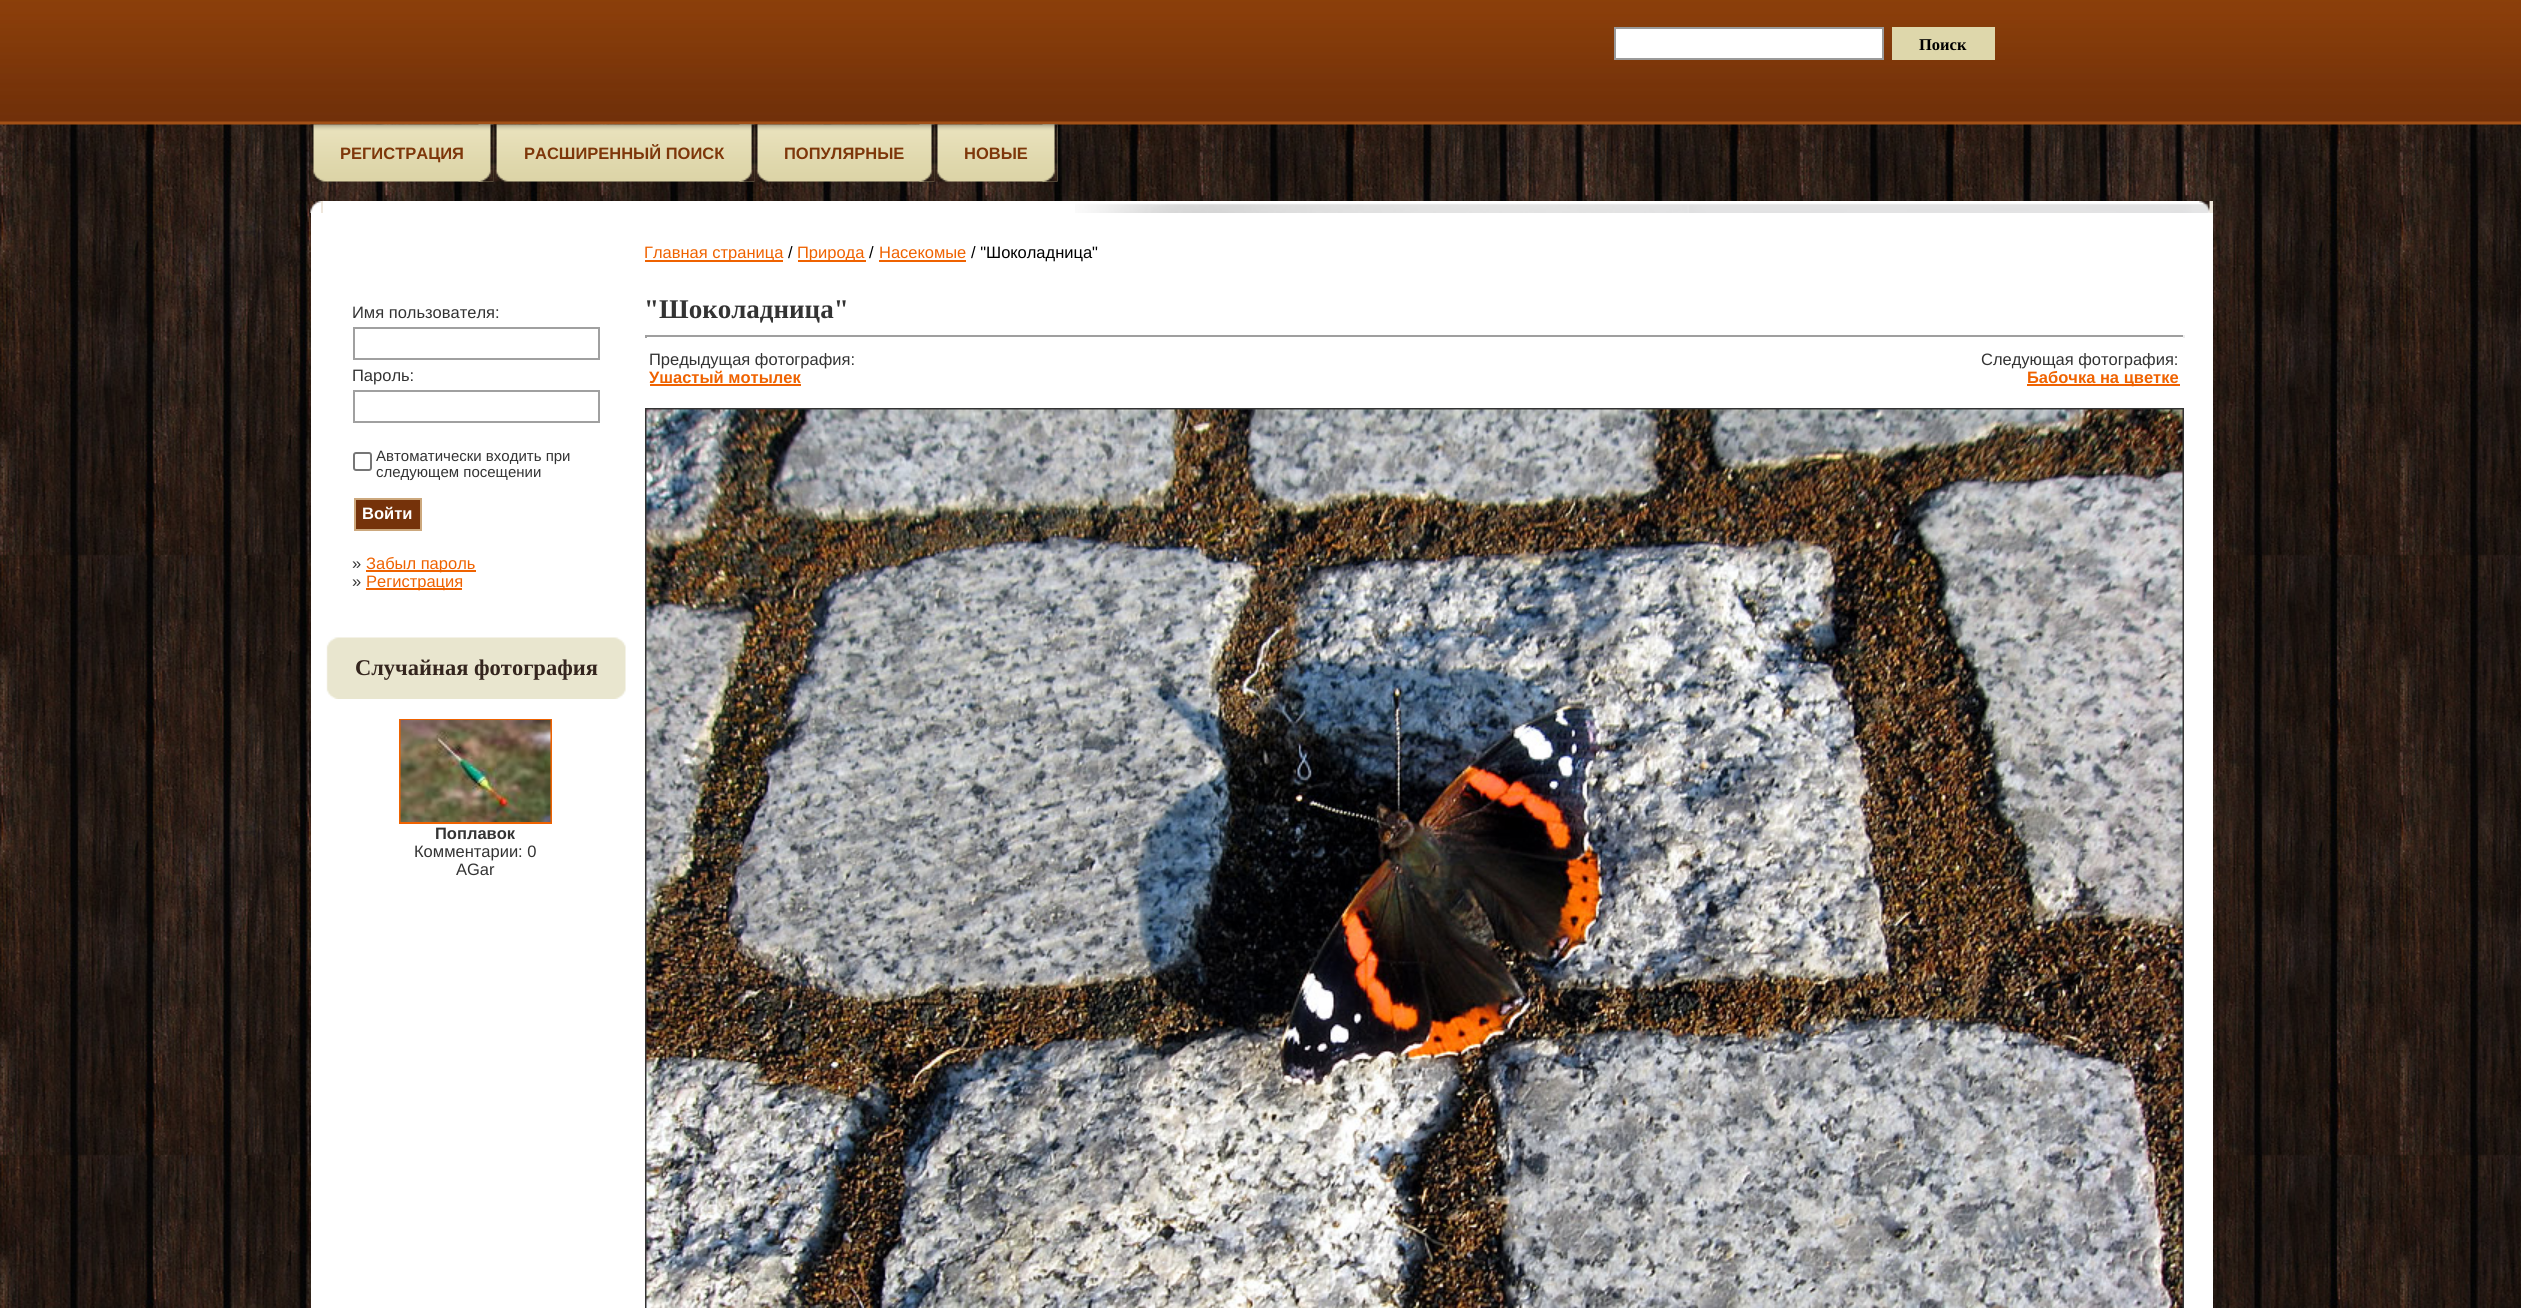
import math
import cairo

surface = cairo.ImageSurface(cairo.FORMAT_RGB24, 2521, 1308)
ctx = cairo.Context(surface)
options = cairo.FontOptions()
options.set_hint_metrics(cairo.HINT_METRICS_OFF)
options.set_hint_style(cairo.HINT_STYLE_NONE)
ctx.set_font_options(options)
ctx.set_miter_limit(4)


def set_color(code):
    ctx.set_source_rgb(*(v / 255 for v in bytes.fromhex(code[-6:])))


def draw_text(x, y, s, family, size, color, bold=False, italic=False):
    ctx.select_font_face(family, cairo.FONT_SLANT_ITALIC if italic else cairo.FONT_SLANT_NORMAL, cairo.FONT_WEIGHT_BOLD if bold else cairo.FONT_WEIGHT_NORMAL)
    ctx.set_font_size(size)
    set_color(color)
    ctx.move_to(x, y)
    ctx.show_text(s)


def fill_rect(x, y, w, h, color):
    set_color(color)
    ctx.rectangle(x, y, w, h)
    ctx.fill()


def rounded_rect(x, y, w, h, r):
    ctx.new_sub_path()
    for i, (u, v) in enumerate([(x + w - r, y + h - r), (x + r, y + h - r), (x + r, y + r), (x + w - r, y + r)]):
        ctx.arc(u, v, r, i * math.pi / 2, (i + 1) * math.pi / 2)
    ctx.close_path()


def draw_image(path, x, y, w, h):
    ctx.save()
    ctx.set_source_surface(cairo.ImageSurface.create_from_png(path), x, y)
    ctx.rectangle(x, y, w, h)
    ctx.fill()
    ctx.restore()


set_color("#ffffff")
ctx.paint()
draw_image("assets/img1.png", 0, 124, 2521, 1184)
draw_image("assets/img2.png", 0, 0, 2521, 125)
set_color("#ffffff")
ctx.rectangle(1615, 28, 268, 31)
ctx.fill_preserve()
set_color("#9a9a9a")
ctx.stroke()
fill_rect(1892, 27, 103, 33, "#ded7ab")
draw_text(1919, 50, "Поиск", "Liberation Serif", 16.5, "#000000", bold=True)
draw_image("assets/img3.png", 310, 124, 184, 58)
draw_image("assets/img4.png", 478, 124, 16, 58)
draw_text(340, 159, "РЕГИСТРАЦИЯ", "Liberation Sans", 16.5, "#7e370a", bold=True)
draw_image("assets/img5.png", 493, 124, 262, 58)
draw_image("assets/img6.png", 739, 124, 16, 58)
draw_text(524, 159, "РАСШИРЕННЫЙ ПОИСК", "Liberation Sans", 16.5, "#7e370a", bold=True)
draw_image("assets/img7.png", 754, 124, 181, 58)
draw_image("assets/img8.png", 919, 124, 16, 58)
draw_text(784, 159, "ПОПУЛЯРНЫЕ", "Liberation Sans", 16.5, "#7e370a", bold=True)
draw_image("assets/img9.png", 934, 124, 124, 58)
draw_image("assets/img10.png", 1042, 124, 16, 58)
draw_text(964, 159, "НОВЫЕ", "Liberation Sans", 16.5, "#7e370a", bold=True)
fill_rect(321, 201, 1892, 12, "#efe7dc")
draw_image("assets/img11.png", 310, 201, 11, 12)
fill_rect(323, 201, 1876, 12, "#ffffff")
draw_image("assets/img12.png", 1075, 203, 1124, 10)
draw_image("assets/img13.png", 2199, 201, 11, 12)
fill_rect(311, 213, 1902, 1095, "#ffffff")
draw_text(352, 318, "Имя пользователя:", "Liberation Sans", 16.5, "#333333")
ctx.rectangle(354, 328, 245, 31)
set_color("#a0a0a0")
ctx.stroke()
draw_text(352, 381, "Пароль:", "Liberation Sans", 16.5, "#333333")
ctx.rectangle(354, 391, 245, 31)
set_color("#a0a0a0")
ctx.stroke()
rounded_rect(354, 453, 17, 17, 2)
set_color("#767676")
ctx.stroke()
draw_text(376, 461, "Автоматически входить при", "Liberation Sans", 15, "#333333")
draw_text(376, 477, "следующем посещении", "Liberation Sans", 15, "#333333")
set_color("#75320a")
ctx.rectangle(355, 499, 66, 31)
ctx.fill_preserve()
set_color("#cca87d")
ctx.stroke()
draw_text(362, 519, "Войти", "Liberation Sans", 16.5, "#ffffff", bold=True)
draw_text(352, 569, "»", "Liberation Sans", 16.5, "#333333")
fill_rect(366, 570, 110, 2, "#ef6200")
draw_text(366, 569, "Забыл пароль", "Liberation Sans", 16.5, "#ef6200")
draw_text(352, 587, "»", "Liberation Sans", 16.5, "#333333")
fill_rect(366, 588, 96, 2, "#ef6200")
draw_text(366, 587, "Регистрация", "Liberation Sans", 16.5, "#ef6200")
draw_image("assets/img14.png", 326, 637, 300, 62)
draw_text(355, 675, "Случайная фотография", "Liberation Serif", 22.5, "#34251e", bold=True)
ctx.rectangle(400, 720, 151, 103)
set_color("#ef6200")
ctx.stroke()
draw_image("assets/img15.png", 400, 720, 151, 102)
draw_text(435, 839, "Поплавок", "Liberation Sans", 16.5, "#333333", bold=True)
draw_text(414, 857, "Комментарии: 0", "Liberation Sans", 16.5, "#333333")
draw_text(456, 875, "AGar", "Liberation Sans", 16.5, "#333333")
fill_rect(645, 260, 138, 2, "#ef6200")
draw_text(644, 258, "Главная страница", "Liberation Sans", 16.5, "#ef6200")
draw_text(788, 258, "/", "Liberation Sans", 16.5, "#000000")
fill_rect(798, 260, 68, 2, "#ef6200")
draw_text(797, 258, "Природа", "Liberation Sans", 16.5, "#ef6200")
draw_text(869, 258, "/", "Liberation Sans", 16.5, "#000000")
draw_text(879, 258, "Насекомые", "Liberation Sans", 16.5, "#ef6200")
fill_rect(879, 260, 87, 2, "#ef6200")
draw_text(971, 258, "/ \"Шоколадница\"", "Liberation Sans", 16.5, "#000000")
draw_text(644, 318, "\"Шоколадница\"", "Liberation Serif", 27, "#333333", bold=True)
fill_rect(645, 335, 1539, 2, "#9f9f9f")
fill_rect(2183, 335, 2, 3, "#eeeeee")
fill_rect(645, 335, 2, 3, "#9f9f9f")
draw_text(649, 365, "Предыдущая фотография:", "Liberation Sans", 16.5, "#333333")
draw_text(649, 383, "Ушастый мотылек", "Liberation Sans", 16.5, "#ef6200", bold=True)
fill_rect(650, 384, 151, 2, "#ef6200")
draw_text(1981, 365, "Следующая фотография:", "Liberation Sans", 16.5, "#333333")
fill_rect(2027, 384, 153, 2, "#ef6200")
draw_text(2027, 383, "Бабочка на цветке", "Liberation Sans", 16.5, "#ef6200", bold=True)
ctx.rectangle(646, 409, 1537, 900)
set_color("#333333")
ctx.stroke()
draw_image("assets/img16.png", 646, 409, 1537, 899)
surface.write_to_png("output.png")
